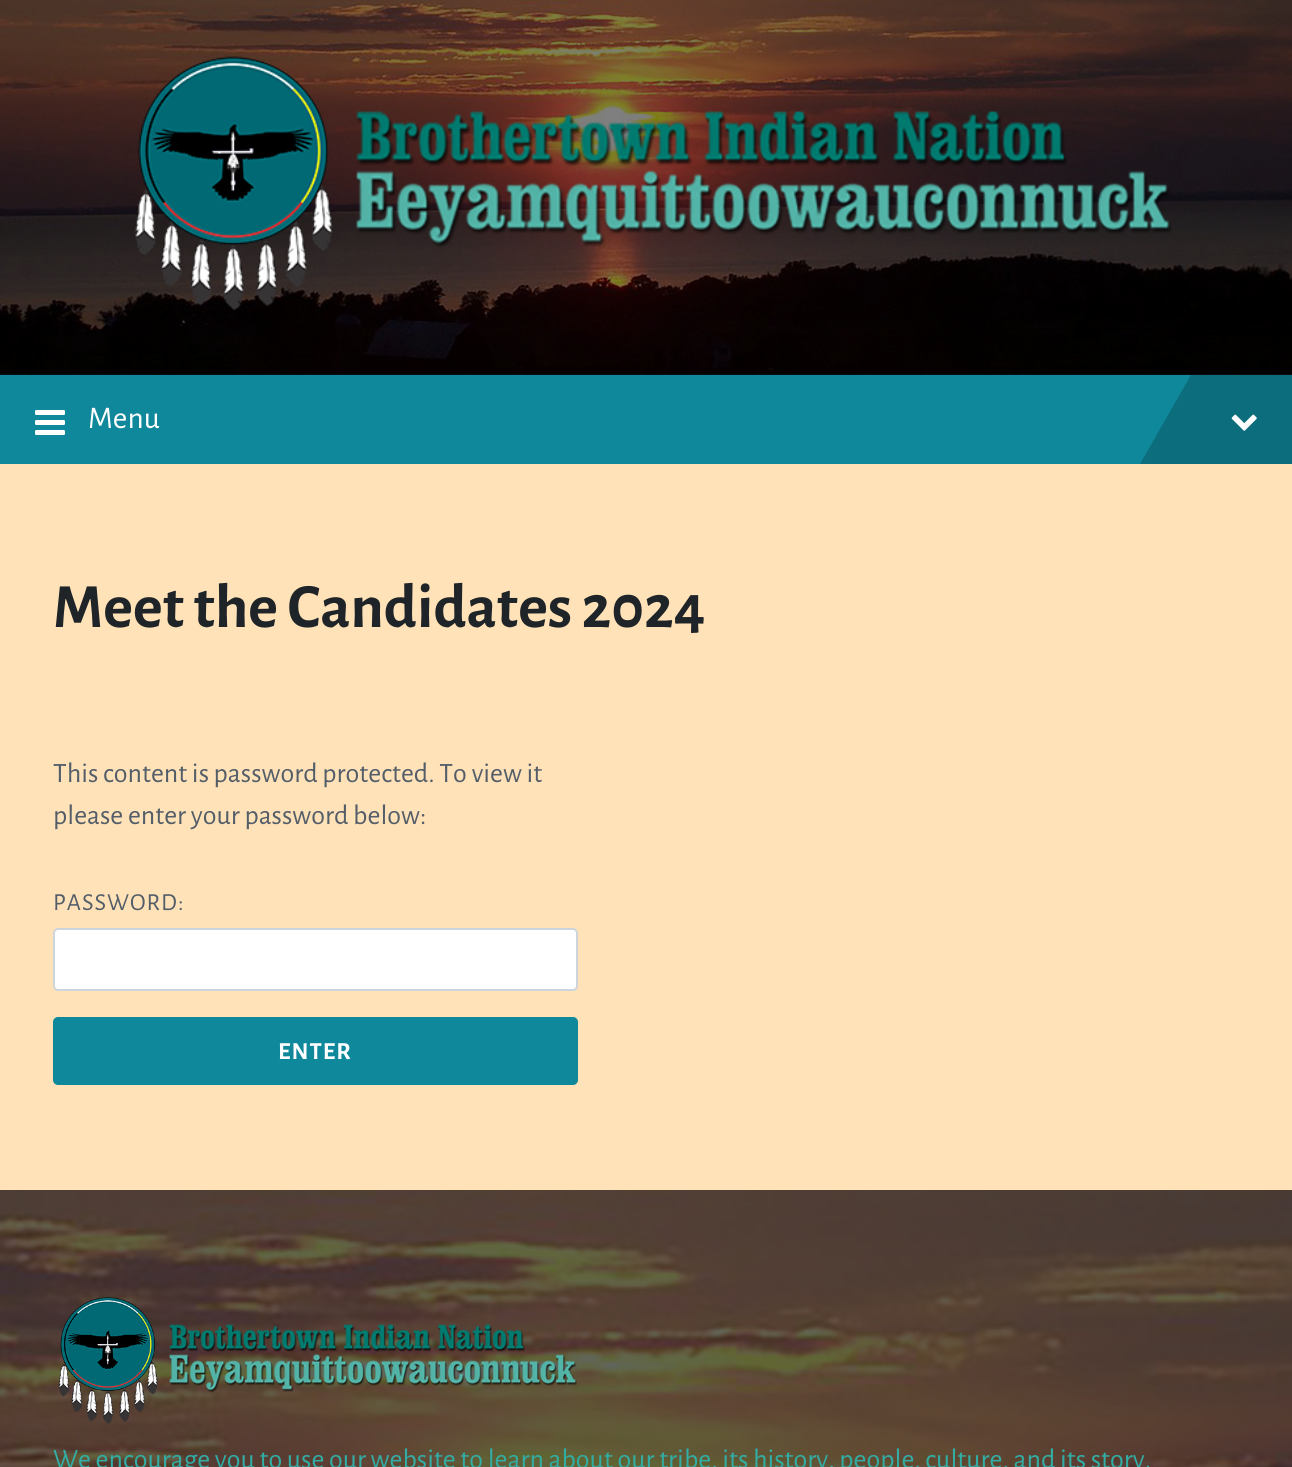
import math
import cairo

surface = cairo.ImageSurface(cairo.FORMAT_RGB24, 1292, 1467)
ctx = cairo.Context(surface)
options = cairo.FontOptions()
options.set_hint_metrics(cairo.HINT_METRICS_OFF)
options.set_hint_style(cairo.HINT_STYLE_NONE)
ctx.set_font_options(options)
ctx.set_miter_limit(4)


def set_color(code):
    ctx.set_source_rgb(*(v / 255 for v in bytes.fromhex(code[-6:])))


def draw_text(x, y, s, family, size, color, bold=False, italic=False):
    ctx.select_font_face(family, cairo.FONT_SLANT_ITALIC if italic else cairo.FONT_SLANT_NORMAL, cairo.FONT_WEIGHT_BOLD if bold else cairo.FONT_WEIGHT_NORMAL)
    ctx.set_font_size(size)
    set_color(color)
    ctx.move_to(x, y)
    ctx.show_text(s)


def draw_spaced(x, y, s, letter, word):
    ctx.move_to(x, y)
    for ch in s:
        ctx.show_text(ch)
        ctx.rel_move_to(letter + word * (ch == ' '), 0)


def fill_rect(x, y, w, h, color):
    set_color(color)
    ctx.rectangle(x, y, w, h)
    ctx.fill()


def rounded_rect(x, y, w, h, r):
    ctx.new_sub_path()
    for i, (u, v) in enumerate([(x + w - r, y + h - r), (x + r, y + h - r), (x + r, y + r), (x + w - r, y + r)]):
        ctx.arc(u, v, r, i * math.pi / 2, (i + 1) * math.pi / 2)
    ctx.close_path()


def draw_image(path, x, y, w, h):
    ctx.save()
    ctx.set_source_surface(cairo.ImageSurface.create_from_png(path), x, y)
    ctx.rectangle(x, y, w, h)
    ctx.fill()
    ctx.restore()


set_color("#ffe2b8")
ctx.paint()
fill_rect(0, 374, 1292, 1, "#0f1214")
draw_image("assets/img1.png", 0, 0, 1292, 375)
draw_image("assets/img2.png", 134, 56, 1038, 254)
fill_rect(0, 375, 1191, 89, "#0f889b")
draw_image("assets/img3.png", 35, 410, 30, 25)
draw_text(88, 428, "Menu", "Alegreya Sans", 31.5, "#ffffff")
ctx.save()
ctx.rectangle(0, 375, 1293, 89)
ctx.clip()
set_color("#0c6d7c")
ctx.new_path()
ctx.move_to(1224, 317)
ctx.line_to(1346, 387)
ctx.line_to(1257, 541)
ctx.line_to(1136, 471)
ctx.close_path()
ctx.fill()
ctx.restore()
draw_image("assets/img4.png", 1231, 414, 26, 17)
draw_text(53, 627, "Meet the Candidates 2024", "Alegreya Sans", 63, "#1e2427", bold=True)
draw_text(53, 782, "This content is password protected. To view it", "Alegreya Sans", 28, "#545e69")
draw_text(53, 824, "please enter your password below:", "Alegreya Sans", 28, "#545e69")
ctx.set_font_size(24.5)
draw_spaced(53, 910, "PASSWORD:", 1, 0)
set_color("#ffffff")
rounded_rect(54, 929, 523, 61, 4)
ctx.fill_preserve()
set_color("#ccd5db")
ctx.stroke()
set_color("#0f889b")
rounded_rect(53, 1017, 525, 68, 5)
ctx.fill()
ctx.select_font_face("Alegreya Sans", cairo.FONT_SLANT_NORMAL, cairo.FONT_WEIGHT_BOLD)
set_color("#ffffff")
draw_spaced(278, 1059, "ENTER", 1, 0)
draw_image("assets/img5.png", 0, 1190, 1292, 277)
draw_image("assets/img6.png", 58, 1297, 519, 127)
draw_text(53, 1468, "We encourage you to use our website to learn about our tribe, its history, people, culture, and its story.", "Alegreya Sans", 28, "#32ada4")
surface.write_to_png("output.png")
